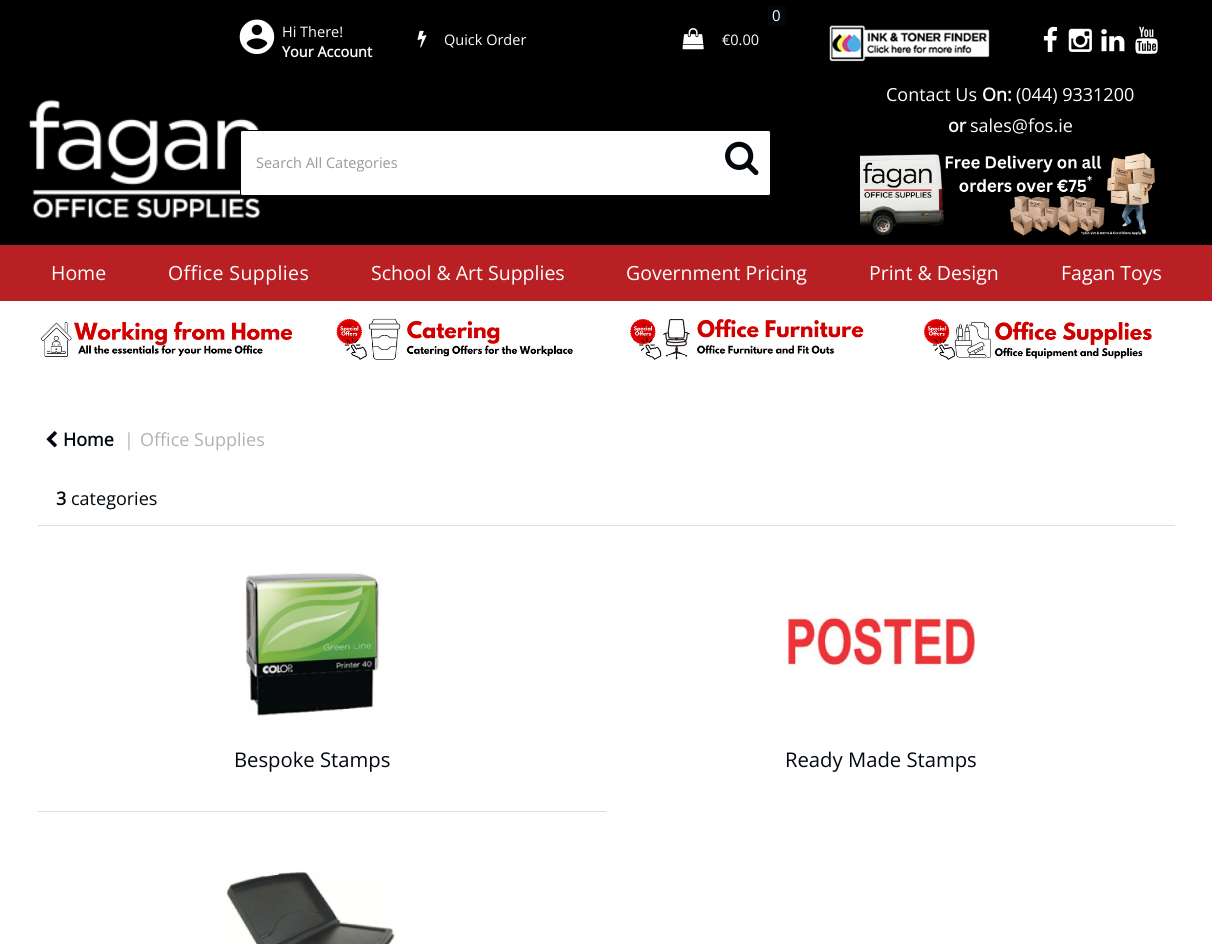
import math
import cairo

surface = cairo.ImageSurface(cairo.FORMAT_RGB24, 1212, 944)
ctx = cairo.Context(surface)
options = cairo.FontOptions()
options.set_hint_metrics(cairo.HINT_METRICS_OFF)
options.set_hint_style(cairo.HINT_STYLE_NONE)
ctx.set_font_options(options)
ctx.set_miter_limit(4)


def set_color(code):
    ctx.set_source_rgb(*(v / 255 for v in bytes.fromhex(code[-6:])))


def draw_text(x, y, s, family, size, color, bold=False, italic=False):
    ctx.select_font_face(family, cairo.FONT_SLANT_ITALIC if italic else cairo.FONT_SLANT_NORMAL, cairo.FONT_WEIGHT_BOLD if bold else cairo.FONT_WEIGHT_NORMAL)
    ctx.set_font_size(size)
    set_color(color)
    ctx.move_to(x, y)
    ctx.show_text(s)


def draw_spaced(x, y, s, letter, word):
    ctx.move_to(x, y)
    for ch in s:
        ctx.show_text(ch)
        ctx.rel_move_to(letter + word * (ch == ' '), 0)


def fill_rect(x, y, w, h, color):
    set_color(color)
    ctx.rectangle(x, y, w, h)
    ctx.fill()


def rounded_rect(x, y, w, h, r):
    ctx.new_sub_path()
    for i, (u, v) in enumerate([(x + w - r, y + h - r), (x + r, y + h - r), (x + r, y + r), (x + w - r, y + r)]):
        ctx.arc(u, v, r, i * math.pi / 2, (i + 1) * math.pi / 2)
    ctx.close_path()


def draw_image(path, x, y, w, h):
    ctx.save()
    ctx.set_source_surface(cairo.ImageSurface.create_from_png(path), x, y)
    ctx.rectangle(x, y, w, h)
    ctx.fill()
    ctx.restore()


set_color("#ffffff")
ctx.paint()
fill_rect(0, 0, 1212, 245, "#000000")
draw_image("assets/img1.png", 239, 19, 36, 35)
draw_text(282, 37, "Hi There!", "Open Sans", 14.5, "#ffffff")
draw_text(282, 57, "Your Account", "Open Sans", 14.5, "#ffffff", bold=True)
draw_image("assets/img2.png", 417, 30, 10, 18)
draw_text(444, 45, "Quick Order", "Open Sans", 14.5, "#ffffff")
fill_rect(768, 6, 18, 20, "#01070d")
draw_text(772, 21, "0", "Open Sans", 15, "#ffffff")
draw_image("assets/img3.png", 682, 28, 22, 22)
draw_text(722, 45, "€0.00", "Open Sans", 14.5, "#ffffff")
draw_image("assets/img4.png", 829, 25, 161, 37)
draw_image("assets/img5.png", 1043, 26, 14, 26)
draw_image("assets/img6.png", 1068, 28, 24, 24)
draw_image("assets/img7.png", 1101, 29, 24, 23)
draw_image("assets/img8.png", 1135, 26, 23, 28)
draw_image("assets/img9.png", 28, 99, 233, 120)
rounded_rect(240.5, 130.5, 530, 65, 2)
ctx.fill_preserve()
set_color("#01070d")
ctx.set_line_width(1)
ctx.stroke()
draw_text(256, 168, "Search All Categories", "Open Sans", 14.5, "#999999")
draw_image("assets/img10.png", 725, 141, 34, 35)
draw_text(886, 101, "Contact Us", "Open Sans", 18, "#ffffff")
draw_text(982, 101, "On:", "Open Sans", 18, "#ffffff", bold=True)
draw_text(1016, 101, "(044) 9331200", "Open Sans", 18, "#ffffff")
draw_text(948, 132, "or", "Open Sans", 18, "#ffffff", bold=True)
draw_text(970, 132, "sales@fos.ie", "Open Sans", 18, "#ffffff")
draw_image("assets/img11.png", 860, 152, 295, 84)
fill_rect(0, 245, 1212, 56, "#b92024")
draw_text(51, 280, "Home", "Open Sans", 19.5, "#ffffff")
draw_spaced(168, 280, "Office Supplies", 0.4, 0)
draw_text(371, 280, "School & Art Supplies", "Open Sans", 19.5, "#ffffff")
draw_text(626, 280, "Government Pricing", "Open Sans", 19.5, "#ffffff")
draw_text(869, 280, "Print & Design", "Open Sans", 19.5, "#ffffff")
draw_text(1061, 280, "Fagan Toys", "Open Sans", 19.5, "#ffffff")
draw_image("assets/img12.png", 40, 321, 253, 36)
draw_image("assets/img13.png", 336, 318, 237, 42)
draw_image("assets/img14.png", 630, 319, 234, 41)
draw_image("assets/img15.png", 924, 319, 228, 41)
draw_image("assets/img16.png", 46, 431, 11, 17)
draw_text(63, 446, "Home", "Open Sans", 18, "#01070d", bold=True)
draw_text(124, 446, "|", "Open Sans", 18, "#b2b2b2")
draw_text(140, 446, "Office Supplies", "Open Sans", 18, "#b2b2b2")
draw_text(56, 505, "3", "Open Sans", 18, "#01070d", bold=True)
draw_text(71, 505, "categories", "Open Sans", 18, "#01070d")
fill_rect(38, 525, 1137, 1, "#dddddd")
draw_image("assets/img17.png", 245, 572, 136, 144)
draw_text(234, 767, "Bespoke Stamps", "Open Sans", 20.25, "#01070d")
draw_image("assets/img18.png", 787, 613, 188, 55)
draw_text(785, 767, "Ready Made Stamps", "Open Sans", 20.25, "#01070d")
fill_rect(38, 811, 568, 1, "#dddddd")
draw_image("assets/img19.png", 225, 870, 171, 74)
surface.write_to_png("output.png")
